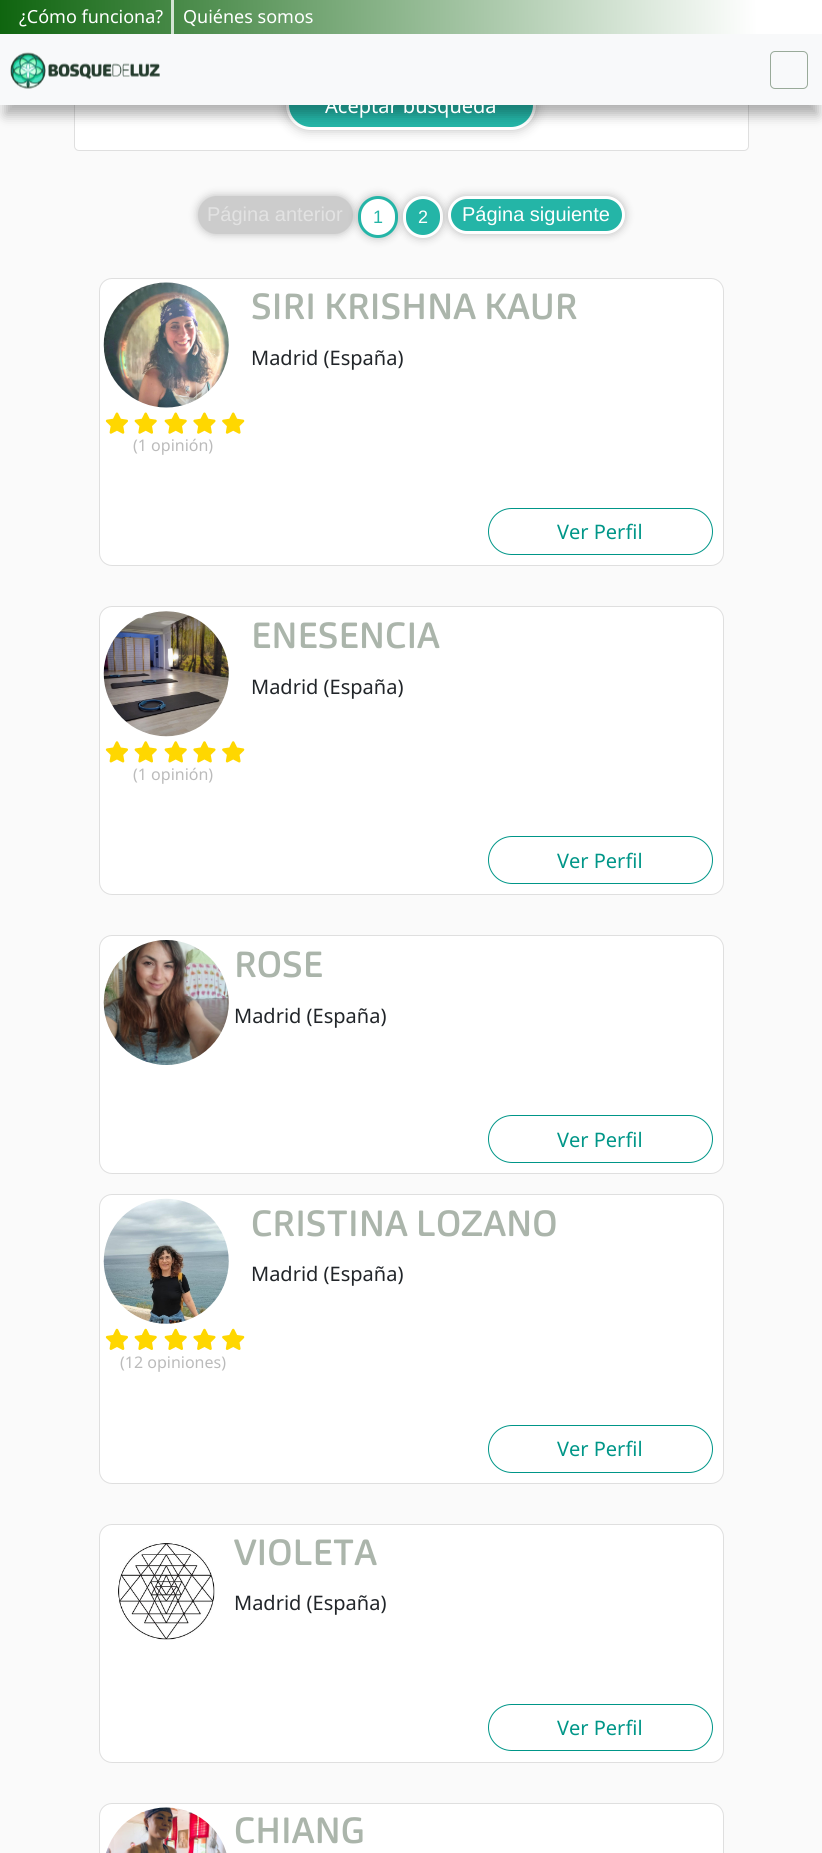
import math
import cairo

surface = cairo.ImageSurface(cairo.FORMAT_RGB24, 822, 1853)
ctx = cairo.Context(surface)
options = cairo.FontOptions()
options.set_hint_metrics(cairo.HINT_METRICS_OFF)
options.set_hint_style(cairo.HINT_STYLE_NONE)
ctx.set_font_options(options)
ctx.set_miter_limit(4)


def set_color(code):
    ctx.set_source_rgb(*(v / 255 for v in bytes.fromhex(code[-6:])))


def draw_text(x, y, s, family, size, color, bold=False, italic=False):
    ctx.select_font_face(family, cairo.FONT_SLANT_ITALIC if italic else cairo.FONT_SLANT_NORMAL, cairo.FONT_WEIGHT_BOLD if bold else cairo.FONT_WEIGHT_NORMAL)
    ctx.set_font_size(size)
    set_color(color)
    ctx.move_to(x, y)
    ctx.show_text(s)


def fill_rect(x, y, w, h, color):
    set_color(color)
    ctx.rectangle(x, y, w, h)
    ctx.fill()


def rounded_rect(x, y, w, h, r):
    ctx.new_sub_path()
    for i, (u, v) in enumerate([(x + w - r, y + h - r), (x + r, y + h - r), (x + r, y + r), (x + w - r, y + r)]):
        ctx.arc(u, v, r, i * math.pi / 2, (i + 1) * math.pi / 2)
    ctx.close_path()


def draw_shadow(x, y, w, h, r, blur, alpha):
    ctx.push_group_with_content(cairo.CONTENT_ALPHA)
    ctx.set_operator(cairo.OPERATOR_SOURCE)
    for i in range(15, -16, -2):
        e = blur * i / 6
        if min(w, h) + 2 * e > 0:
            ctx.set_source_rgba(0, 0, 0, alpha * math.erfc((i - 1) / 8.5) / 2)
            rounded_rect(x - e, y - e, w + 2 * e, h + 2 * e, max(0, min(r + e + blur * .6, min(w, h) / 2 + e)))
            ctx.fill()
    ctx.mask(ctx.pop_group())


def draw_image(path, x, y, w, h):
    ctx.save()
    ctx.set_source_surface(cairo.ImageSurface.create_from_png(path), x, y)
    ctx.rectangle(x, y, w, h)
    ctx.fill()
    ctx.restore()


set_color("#fafafa")
ctx.paint()
set_color("#ffffff")
rounded_rect(74.5, -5.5, 674, 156, 4.5)
ctx.fill_preserve()
set_color("#dfdfdf")
ctx.set_line_width(1)
ctx.stroke()
gradient = cairo.LinearGradient(-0.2, 24, 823, 10)
gradient.add_color_stop_rgba(0, 0.059, 0.396, 0.059, 1)
gradient.add_color_stop_rgba(0.92, 1, 1, 1, 1)
ctx.set_source(gradient)
ctx.rectangle(0, 0, 822, 34)
ctx.fill()
draw_text(19, 23, "¿Cómo funciona?", "Noto Sans", 18, "#ffffff")
fill_rect(171, 0, 3, 34, "#d4e4d4")
draw_text(183, 23, "Quiénes somos", "Noto Sans", 18, "#ffffff")
set_color("#000000")
draw_shadow(286, 80, 250, 50, 25, 6, 0.26)
set_color("#24b5a7")
rounded_rect(287.5, 81.5, 247, 47, 23.5)
ctx.fill_preserve()
set_color("#ffffff")
ctx.set_line_width(3)
ctx.stroke()
set_color("#000000")
draw_shadow(5, 54, 813, 61, 0, 6, 0.3)
draw_text(325, 113, "Aceptar búsqueda", "Noto Sans", 20, "#ffffff")
fill_rect(0, 34, 822, 71, "#f8f9fa")
draw_image("assets/img1.png", 10, 52, 150, 37)
rounded_rect(770.5, 51.5, 37, 37, 4.5)
set_color("#99aa99")
ctx.set_line_width(1)
ctx.stroke()
set_color("#000000")
draw_shadow(198, 196, 155, 38, 19, 4.5, 0.26)
set_color("#cccccc")
rounded_rect(199.5, 197.5, 152, 35, 17.5)
ctx.fill_preserve()
ctx.set_line_width(3)
ctx.stroke()
draw_text(207, 221, "Página anterior", "Liberation Sans", 20, "#e2e2e2")
set_color("#000000")
draw_shadow(358, 196, 40, 42, 20, 4.5, 0.26)
set_color("#ffffff")
rounded_rect(359.5, 197.5, 37, 39, 18.5)
ctx.fill_preserve()
set_color("#24b5a7")
ctx.stroke()
draw_text(373, 223, "1", "Liberation Sans", 18, "#24b5a7")
set_color("#000000")
draw_shadow(403, 196, 40, 42, 20, 4.5, 0.26)
set_color("#24b5a7")
rounded_rect(404.5, 197.5, 37, 39, 18.5)
ctx.fill_preserve()
set_color("#ffffff")
ctx.stroke()
draw_text(418, 223, "2", "Liberation Sans", 18, "#ffffff")
set_color("#000000")
draw_shadow(448, 196, 177, 38, 19, 4.5, 0.26)
set_color("#24b5a7")
rounded_rect(449.5, 197.5, 174, 35, 17.5)
ctx.fill_preserve()
set_color("#ffffff")
ctx.stroke()
draw_text(462, 221, "Página siguiente", "Liberation Sans", 20, "#ffffff")
rounded_rect(99.5, 278.5, 624, 287, 12.5)
ctx.fill_preserve()
set_color("#dfdfdf")
ctx.set_line_width(1)
ctx.stroke()
draw_text(251, 319, "SIRI KRISHNA KAUR", "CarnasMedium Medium", 36, "#abb5ab")
draw_text(251, 365, "Madrid (España)", "Noto Sans", 20, "#212529")
draw_image("assets/img2.png", 103, 282, 126, 126)
draw_image("assets/img3.png", 105, 412, 23, 22)
draw_image("assets/img4.png", 134, 412, 23, 22)
draw_image("assets/img4.png", 164, 412, 23, 22)
draw_image("assets/img5.png", 193, 412, 23, 22)
draw_image("assets/img6.png", 222, 412, 23, 22)
draw_text(133, 451, "(1 opinión)", "Noto Sans", 16, "#bbbbbb")
rounded_rect(488.5, 508.5, 224, 46, 23)
set_color("#009688")
ctx.stroke()
draw_text(557, 539, "Ver Perfil", "Noto Sans", 20, "#009688")
set_color("#ffffff")
rounded_rect(99.5, 606.5, 624, 288, 12.5)
ctx.fill_preserve()
set_color("#dfdfdf")
ctx.stroke()
draw_text(251, 648, "ENESENCIA", "CarnasMedium Medium", 36, "#abb5ab")
draw_text(251, 694, "Madrid (España)", "Noto Sans", 20, "#212529")
draw_image("assets/img7.png", 103, 611, 126, 126)
draw_image("assets/img8.png", 105, 741, 23, 22)
draw_image("assets/img9.png", 134, 741, 23, 22)
draw_image("assets/img9.png", 164, 741, 23, 22)
draw_image("assets/img10.png", 193, 741, 23, 22)
draw_image("assets/img11.png", 222, 741, 23, 22)
draw_text(133, 780, "(1 opinión)", "Noto Sans", 16, "#bbbbbb")
rounded_rect(488.5, 836.5, 224, 47, 23.5)
set_color("#009688")
ctx.stroke()
draw_text(557, 868, "Ver Perfil", "Noto Sans", 20, "#009688")
set_color("#ffffff")
rounded_rect(99.5, 935.5, 624, 238, 12.5)
ctx.fill_preserve()
set_color("#dfdfdf")
ctx.stroke()
draw_image("assets/img12.png", 103, 940, 126, 125)
draw_text(234, 977, "ROSE", "CarnasMedium Medium", 36, "#abb5ab")
draw_text(234, 1023, "Madrid (España)", "Noto Sans", 20, "#212529")
rounded_rect(488.5, 1115.5, 224, 47, 23.5)
set_color("#009688")
ctx.stroke()
draw_text(557, 1147, "Ver Perfil", "Noto Sans", 20, "#009688")
set_color("#ffffff")
rounded_rect(99.5, 1194.5, 624, 289, 12.5)
ctx.fill_preserve()
set_color("#dfdfdf")
ctx.stroke()
draw_text(251, 1236, "CRISTINA LOZANO", "CarnasMedium Medium", 36, "#abb5ab")
draw_text(251, 1281, "Madrid (España)", "Noto Sans", 20, "#212529")
draw_image("assets/img13.png", 103, 1198, 126, 126)
draw_image("assets/img14.png", 105, 1328, 23, 22)
draw_image("assets/img15.png", 134, 1328, 23, 22)
draw_image("assets/img15.png", 164, 1328, 23, 22)
draw_image("assets/img16.png", 193, 1328, 23, 22)
draw_image("assets/img17.png", 222, 1328, 23, 22)
draw_text(120, 1368, "(12 opiniones)", "Noto Sans", 16, "#bbbbbb")
rounded_rect(488.5, 1425.5, 224, 47, 23.5)
set_color("#009688")
ctx.stroke()
draw_text(557, 1456, "Ver Perfil", "Noto Sans", 20, "#009688")
set_color("#ffffff")
rounded_rect(99.5, 1524.5, 624, 238, 12.5)
ctx.fill_preserve()
set_color("#dfdfdf")
ctx.stroke()
draw_image("assets/img18.png", 118, 1543, 97, 97)
draw_text(234, 1565, "VIOLETA", "CarnasMedium Medium", 36, "#abb5ab")
draw_text(234, 1610, "Madrid (España)", "Noto Sans", 20, "#212529")
rounded_rect(488.5, 1704.5, 224, 46, 23)
set_color("#009688")
ctx.stroke()
draw_text(557, 1735, "Ver Perfil", "Noto Sans", 20, "#009688")
set_color("#ffffff")
rounded_rect(99.5, 1803.5, 624, 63, 12.5)
ctx.fill_preserve()
set_color("#dfdfdf")
ctx.stroke()
draw_image("assets/img19.png", 106, 1807, 121, 46)
draw_text(234, 1843, "CHIANG", "CarnasMedium Medium", 36, "#abb5ab")
surface.write_to_png("output.png")
